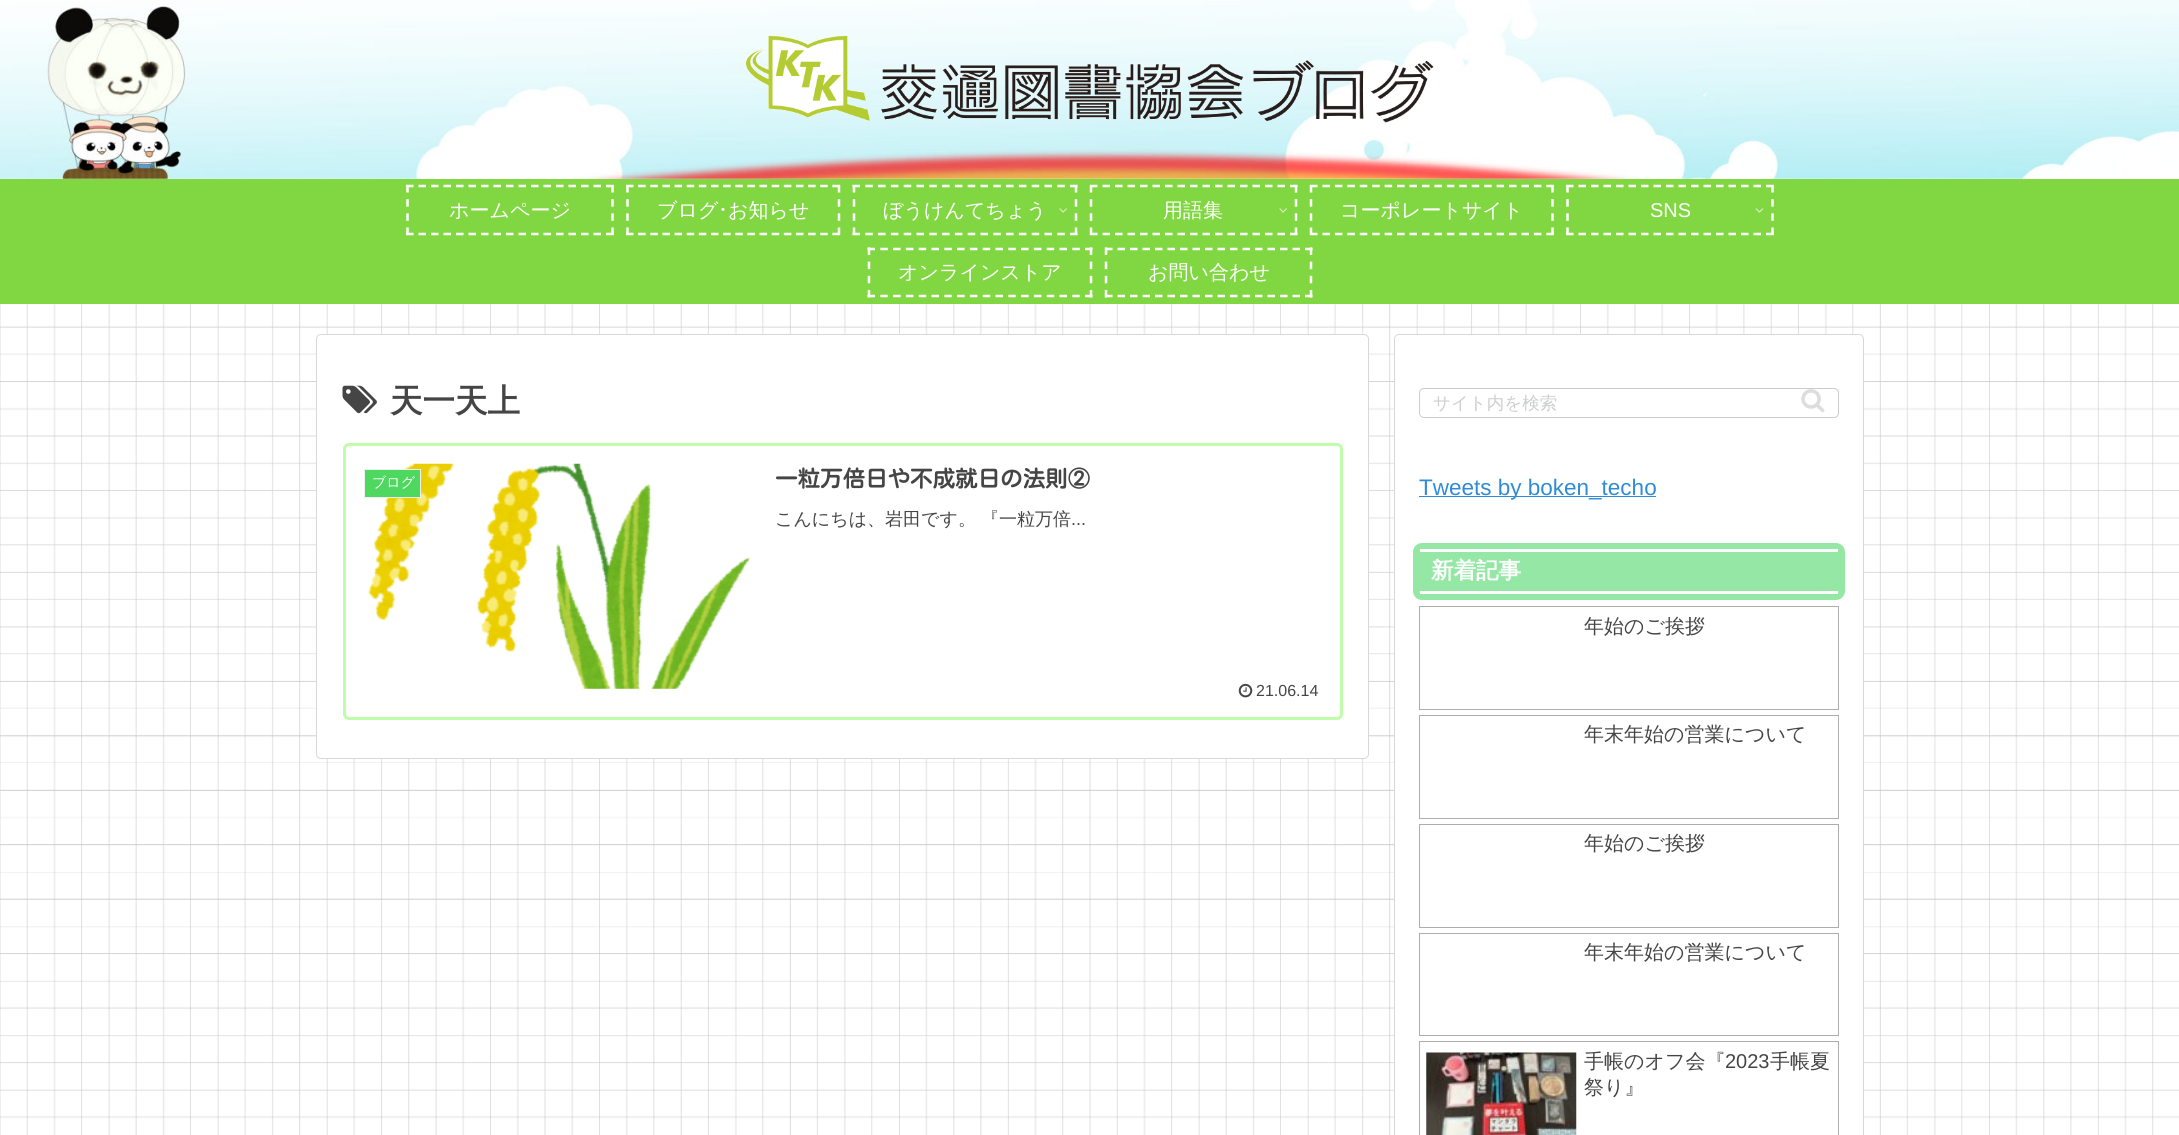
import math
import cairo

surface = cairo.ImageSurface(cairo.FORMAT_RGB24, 2179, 1135)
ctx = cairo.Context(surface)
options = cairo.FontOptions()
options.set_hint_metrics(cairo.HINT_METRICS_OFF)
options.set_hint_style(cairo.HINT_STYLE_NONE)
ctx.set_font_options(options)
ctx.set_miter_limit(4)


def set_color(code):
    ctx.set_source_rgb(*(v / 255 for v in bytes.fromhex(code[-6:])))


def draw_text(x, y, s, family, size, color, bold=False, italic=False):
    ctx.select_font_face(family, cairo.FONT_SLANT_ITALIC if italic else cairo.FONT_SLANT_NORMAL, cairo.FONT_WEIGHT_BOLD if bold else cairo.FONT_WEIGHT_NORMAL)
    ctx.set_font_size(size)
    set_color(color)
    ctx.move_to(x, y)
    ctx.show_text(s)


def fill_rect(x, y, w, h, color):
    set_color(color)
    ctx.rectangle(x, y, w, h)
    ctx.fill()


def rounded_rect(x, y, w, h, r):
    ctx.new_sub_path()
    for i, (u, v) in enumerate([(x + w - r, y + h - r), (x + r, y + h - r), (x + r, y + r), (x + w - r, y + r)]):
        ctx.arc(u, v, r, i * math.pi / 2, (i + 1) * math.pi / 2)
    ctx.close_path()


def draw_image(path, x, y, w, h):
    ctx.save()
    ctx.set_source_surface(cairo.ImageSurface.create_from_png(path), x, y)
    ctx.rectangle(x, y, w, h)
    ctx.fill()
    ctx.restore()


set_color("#ffffff")
ctx.paint()
draw_image("assets/img1.png", 0, 178, 2179, 957)
draw_image("assets/img2.png", 0, 0, 2179, 179)
draw_image("assets/img3.png", 746, 35, 688, 88)
fill_rect(0, 179, 2179, 125, "#81d742")
ctx.new_path()
ctx.move_to(406, 186)
ctx.line_to(614, 186)
set_color("#ffffff")
ctx.set_line_width(2.5)
ctx.set_dash([7.5, 5])
ctx.stroke()
ctx.new_path()
ctx.move_to(612.5, 185)
ctx.line_to(612.5, 235)
ctx.set_dash([7.5, 6.66])
ctx.stroke()
ctx.new_path()
ctx.move_to(406, 234)
ctx.line_to(614, 234)
ctx.set_dash([7.5, 5])
ctx.stroke()
ctx.new_path()
ctx.move_to(407.5, 185)
ctx.line_to(407.5, 235)
ctx.set_dash([7.5, 6.66])
ctx.stroke()
draw_text(449, 217, "ホームページ", "WenQuanYi Zen Hei Medium", 20, "#ffffff")
ctx.new_path()
ctx.move_to(626, 186)
ctx.line_to(840, 186)
ctx.set_dash([7.5, 4.64])
ctx.stroke()
ctx.new_path()
ctx.move_to(839, 185)
ctx.line_to(839, 235)
ctx.set_dash([7.5, 6.66])
ctx.stroke()
ctx.new_path()
ctx.move_to(626, 234)
ctx.line_to(840, 234)
ctx.set_dash([7.5, 4.64])
ctx.stroke()
ctx.new_path()
ctx.move_to(627.5, 185)
ctx.line_to(627.5, 235)
ctx.set_dash([7.5, 6.66])
ctx.stroke()
draw_text(657, 217, "ブログ", "WenQuanYi Zen Hei Medium", 20, "#ffffff")
draw_text(718, 217, "･", "IPAPGothic", 20, "#ffffff")
draw_text(728, 217, "お知らせ", "WenQuanYi Zen Hei Medium", 20, "#ffffff")
ctx.new_path()
ctx.move_to(852.5, 186)
ctx.line_to(1077.5, 186)
ctx.set_dash([7.5, 5.3])
ctx.stroke()
ctx.new_path()
ctx.move_to(1076, 185)
ctx.line_to(1076, 235)
ctx.set_dash([7.5, 6.66])
ctx.stroke()
ctx.new_path()
ctx.move_to(852.5, 234)
ctx.line_to(1077.5, 234)
ctx.set_dash([7.5, 5.3])
ctx.stroke()
ctx.new_path()
ctx.move_to(854, 185)
ctx.line_to(854, 235)
ctx.set_dash([7.5, 6.66])
ctx.stroke()
draw_text(883, 217, "ぼうけんてちょう", "WenQuanYi Zen Hei Medium", 20, "#ffffff")
draw_image("assets/img4.png", 1059, 208, 8, 5)
ctx.new_path()
ctx.move_to(1090, 186)
ctx.line_to(1297.5, 186)
ctx.set_dash([7.5, 5])
ctx.stroke()
ctx.new_path()
ctx.move_to(1296, 185)
ctx.line_to(1296, 235)
ctx.set_dash([7.5, 6.66])
ctx.stroke()
ctx.new_path()
ctx.move_to(1090, 234)
ctx.line_to(1297.5, 234)
ctx.set_dash([7.5, 5])
ctx.stroke()
ctx.new_path()
ctx.move_to(1091, 185)
ctx.line_to(1091, 235)
ctx.set_dash([7.5, 6.66])
ctx.stroke()
draw_text(1163, 217, "用語集", "WenQuanYi Zen Hei Medium", 20, "#ffffff")
draw_image("assets/img4.png", 1279, 208, 8, 5)
ctx.new_path()
ctx.move_to(1310, 186)
ctx.line_to(1554, 186)
ctx.set_dash([7.5, 4.94])
ctx.stroke()
ctx.new_path()
ctx.move_to(1552.5, 185)
ctx.line_to(1552.5, 235)
ctx.set_dash([7.5, 6.66])
ctx.stroke()
ctx.new_path()
ctx.move_to(1310, 234)
ctx.line_to(1554, 234)
ctx.set_dash([7.5, 4.94])
ctx.stroke()
ctx.new_path()
ctx.move_to(1311, 185)
ctx.line_to(1311, 235)
ctx.set_dash([7.5, 6.66])
ctx.stroke()
draw_text(1340, 217, "コーポレートサイト", "WenQuanYi Zen Hei Medium", 20, "#ffffff")
ctx.new_path()
ctx.move_to(1566, 186)
ctx.line_to(1774, 186)
ctx.set_dash([7.5, 5])
ctx.stroke()
ctx.new_path()
ctx.move_to(1772.5, 185)
ctx.line_to(1772.5, 235)
ctx.set_dash([7.5, 6.66])
ctx.stroke()
ctx.new_path()
ctx.move_to(1566, 234)
ctx.line_to(1774, 234)
ctx.set_dash([7.5, 5])
ctx.stroke()
ctx.new_path()
ctx.move_to(1567.5, 185)
ctx.line_to(1567.5, 235)
ctx.set_dash([7.5, 6.66])
ctx.stroke()
draw_text(1650, 217, "SNS", "Liberation Sans", 20, "#ffffff")
draw_image("assets/img5.png", 1755, 208, 9, 5)
ctx.new_path()
ctx.move_to(867.5, 249)
ctx.line_to(1092.5, 249)
ctx.set_dash([7.5, 5.3])
ctx.stroke()
ctx.new_path()
ctx.move_to(1091, 247.5)
ctx.line_to(1091, 297.5)
ctx.set_dash([7.5, 6.66])
ctx.stroke()
ctx.new_path()
ctx.move_to(867.5, 296)
ctx.line_to(1092.5, 296)
ctx.set_dash([7.5, 5.3])
ctx.stroke()
ctx.new_path()
ctx.move_to(869, 247.5)
ctx.line_to(869, 297.5)
ctx.set_dash([7.5, 6.66])
ctx.stroke()
draw_text(898, 279, "オンラインストア", "WenQuanYi Zen Hei Medium", 20, "#ffffff")
ctx.new_path()
ctx.move_to(1105, 249)
ctx.line_to(1312.5, 249)
ctx.set_dash([7.5, 5])
ctx.stroke()
ctx.new_path()
ctx.move_to(1311, 247.5)
ctx.line_to(1311, 297.5)
ctx.set_dash([7.5, 6.66])
ctx.stroke()
ctx.new_path()
ctx.move_to(1105, 296)
ctx.line_to(1312.5, 296)
ctx.set_dash([7.5, 5])
ctx.stroke()
ctx.new_path()
ctx.move_to(1106, 247.5)
ctx.line_to(1106, 297.5)
ctx.set_dash([7.5, 6.66])
ctx.stroke()
draw_text(1148, 279, "お問い合わせ", "WenQuanYi Zen Hei Medium", 20, "#ffffff")
rounded_rect(316.5, 334.5, 1052, 424, 4.5)
ctx.fill_preserve()
set_color("#d8d8d8")
ctx.set_line_width(1)
ctx.set_dash([])
ctx.stroke()
draw_image("assets/img6.png", 342, 385, 35, 29)
draw_text(390, 412, "天一天上", "WenQuanYi Zen Hei", 32.5, "#454545", bold=True)
rounded_rect(344.5, 444.5, 997, 274, 4.5)
set_color("#c0fca9")
ctx.set_line_width(3)
ctx.stroke()
draw_image("assets/img7.png", 368, 463, 382, 226)
set_color("#4ed860")
ctx.rectangle(364.5, 469.5, 56, 28)
ctx.fill_preserve()
set_color("#eeeeee")
ctx.set_line_width(1)
ctx.stroke()
draw_text(372, 487, "ブログ", "WenQuanYi Zen Hei Medium", 14, "#ffffff")
draw_text(775, 487, "一粒万倍日や不成就日の法則②", "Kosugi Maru", 22.5, "#454545", bold=True)
draw_text(775, 525, "こんにちは、岩田です。", "WenQuanYi Zen Hei Medium", 18, "#454545")
draw_text(981, 525, "『一粒万倍", "WenQuanYi Zen Hei Medium", 18, "#454545")
draw_text(1071, 525, "...", "Liberation Sans", 18, "#454545")
draw_image("assets/img8.png", 1238, 683, 15, 15)
draw_text(1256, 696, "21.06.14", "Liberation Sans", 16, "#454545")
set_color("#ffffff")
rounded_rect(1394.5, 334.5, 469, 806, 4.5)
ctx.fill_preserve()
set_color("#d8d8d8")
ctx.stroke()
rounded_rect(1419.5, 388.5, 419, 29, 4.5)
set_color("#cccccc")
ctx.stroke()
draw_text(1433, 409, "サイト内を検索", "WenQuanYi Zen Hei Medium", 17.5, "#cccdce")
draw_image("assets/img9.png", 1801, 389, 24, 24)
fill_rect(1419, 496, 237, 1, "#308bd6")
draw_text(1419, 495, "Tweets by boken_techo", "Liberation Sans", 22.5, "#308bd6")
rounded_rect(1416, 546, 426, 51, 6)
set_color("#95e7a5")
ctx.set_line_width(6)
ctx.stroke()
rounded_rect(1419, 549, 420, 45, 2.5)
ctx.fill()
fill_rect(1420, 549, 418, 3, "#ffffff")
fill_rect(1420, 591, 418, 3, "#ffffff")
draw_text(1431, 578, "新着記事", "WenQuanYi Zen Hei", 22.5, "#ffffff", bold=True)
ctx.rectangle(1419.5, 606.5, 419, 103)
set_color("#adadad")
ctx.set_line_width(1)
ctx.stroke()
draw_text(1584, 633, "年始のご挨拶", "WenQuanYi Zen Hei Medium", 20, "#454545")
ctx.rectangle(1419.5, 715.5, 419, 103)
set_color("#adadad")
ctx.stroke()
draw_text(1584, 741, "年末年始の営業について", "WenQuanYi Zen Hei Medium", 20, "#454545")
ctx.rectangle(1419.5, 824.5, 419, 103)
set_color("#adadad")
ctx.stroke()
draw_text(1584, 850, "年始のご挨拶", "WenQuanYi Zen Hei Medium", 20, "#454545")
ctx.rectangle(1419.5, 933.5, 419, 102)
set_color("#adadad")
ctx.stroke()
draw_text(1584, 959, "年末年始の営業について", "WenQuanYi Zen Hei Medium", 20, "#454545")
ctx.rectangle(1419.5, 1041.5, 419, 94)
set_color("#adadad")
ctx.stroke()
draw_image("assets/img10.png", 1426, 1052, 151, 83)
draw_text(1584, 1068, "手帳のオフ会『", "WenQuanYi Zen Hei Medium", 20, "#454545")
draw_text(1725, 1068, "2023", "Liberation Sans", 20, "#454545")
draw_text(1770, 1068, "手帳夏", "WenQuanYi Zen Hei Medium", 20, "#454545")
draw_text(1584, 1094, "祭り』", "WenQuanYi Zen Hei Medium", 20, "#454545")
surface.write_to_png("output.png")
